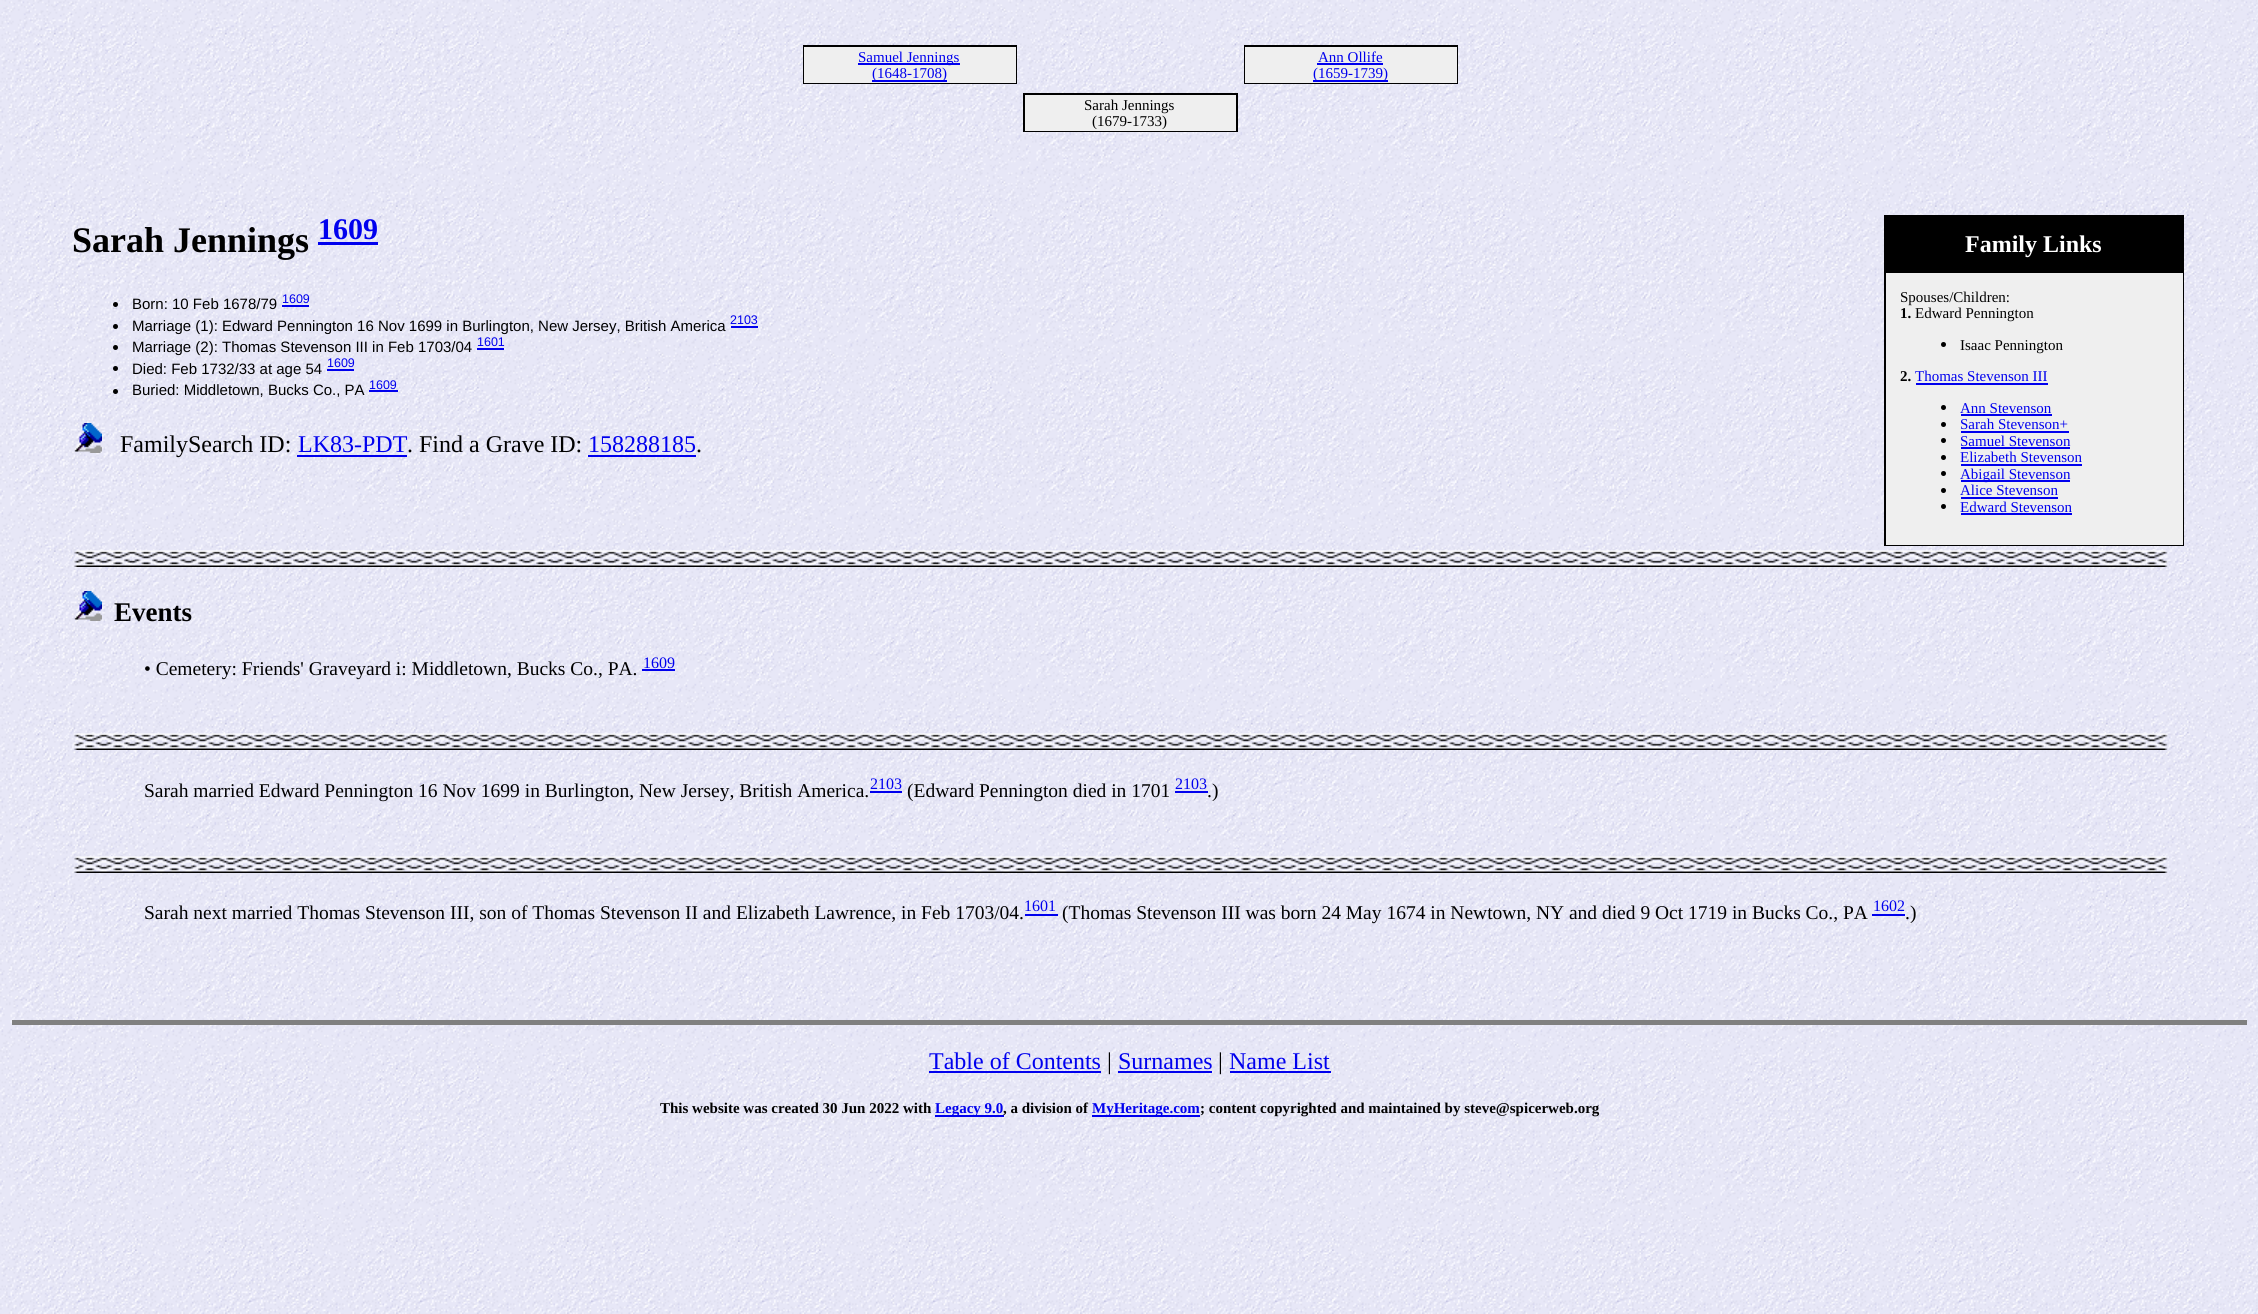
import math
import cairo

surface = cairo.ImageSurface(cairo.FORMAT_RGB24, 2258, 1314)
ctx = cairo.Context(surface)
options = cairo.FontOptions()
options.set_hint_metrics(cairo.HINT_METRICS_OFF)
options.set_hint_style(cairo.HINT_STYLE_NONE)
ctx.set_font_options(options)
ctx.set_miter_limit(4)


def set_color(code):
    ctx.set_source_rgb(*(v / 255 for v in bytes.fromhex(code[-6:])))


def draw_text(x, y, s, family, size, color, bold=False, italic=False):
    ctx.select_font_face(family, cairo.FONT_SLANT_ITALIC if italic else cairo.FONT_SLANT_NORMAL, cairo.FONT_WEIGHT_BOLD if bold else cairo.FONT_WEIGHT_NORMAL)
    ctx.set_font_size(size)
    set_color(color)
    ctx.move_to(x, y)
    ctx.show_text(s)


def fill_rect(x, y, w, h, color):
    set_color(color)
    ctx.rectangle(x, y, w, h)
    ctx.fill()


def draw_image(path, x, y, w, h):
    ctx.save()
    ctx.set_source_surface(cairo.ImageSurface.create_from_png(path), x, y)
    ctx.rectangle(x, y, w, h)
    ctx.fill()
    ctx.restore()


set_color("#ffffff")
ctx.paint()
draw_image("assets/img1.png", 0, 0, 2258, 1314)
fill_rect(803, 45, 214, 39, "#000000")
fill_rect(804, 47, 212, 36, "#efefef")
fill_rect(858, 63, 102, 2, "#0000ee")
draw_text(858, 62, "Samuel Jennings", "Liberation Serif", 15, "#0000ee")
fill_rect(872, 80, 75, 2, "#0000ee")
draw_text(872, 78, "(1648-1708)", "Liberation Serif", 15, "#0000ee")
fill_rect(1244, 45, 214, 39, "#000000")
fill_rect(1245, 47, 212, 36, "#efefef")
draw_text(1318, 62, "Ann Ollife", "Liberation Serif", 15, "#0000ee")
fill_rect(1317, 63, 66, 2, "#0000ee")
fill_rect(1313, 80, 75, 2, "#0000ee")
draw_text(1313, 78, "(1659-1739)", "Liberation Serif", 15, "#0000ee")
fill_rect(1023, 93, 215, 39, "#000000")
fill_rect(1025, 95, 211, 36, "#efefef")
draw_text(1084, 110, "Sarah Jennings", "Liberation Serif", 15, "#000000")
draw_text(1092, 126, "(1679-1733)", "Liberation Serif", 15, "#000000")
draw_text(72, 252, "Sarah Jennings", "Liberation Serif", 36, "#000000", bold=True)
draw_text(318, 239, "1609", "Liberation Serif", 30, "#0000ee", bold=True)
fill_rect(318, 242, 60, 3, "#0000ee")
fill_rect(1884, 215, 300, 331, "#000000")
draw_text(1965, 252, "Family Links", "Liberation Serif", 24, "#ffffff", bold=True)
fill_rect(1886, 273, 297, 272, "#efefef")
draw_text(1900, 302, "Spouses/Children:", "Liberation Serif", 15, "#000000")
draw_text(1900, 318, "1.", "Liberation Serif", 15, "#000000", bold=True)
draw_text(1915, 318, "Edward Pennington", "Liberation Serif", 15, "#000000")
ctx.new_path()
ctx.arc(1943.5, 344.5, 2.5, 0, 2 * math.pi)
ctx.fill()
draw_text(1960, 350, "Isaac Pennington", "Liberation Serif", 15, "#000000")
draw_text(1900, 381, "2.", "Liberation Serif", 15, "#000000", bold=True)
draw_text(1915, 381, "Thomas Stevenson III", "Liberation Serif", 15, "#0000ee")
fill_rect(1916, 383, 132, 2, "#0000ee")
set_color("#000000")
ctx.new_path()
ctx.arc(1943.5, 407.5, 2.5, 0, 2 * math.pi)
ctx.fill()
draw_text(1960, 413, "Ann Stevenson", "Liberation Serif", 15, "#0000ee")
fill_rect(1961, 414, 91, 2, "#0000ee")
set_color("#000000")
ctx.new_path()
ctx.arc(1943.5, 424.5, 2.5, 0, 2 * math.pi)
ctx.fill()
draw_text(1960, 429, "Sarah Stevenson+", "Liberation Serif", 15, "#0000ee")
fill_rect(1961, 431, 108, 2, "#0000ee")
set_color("#000000")
ctx.new_path()
ctx.arc(1943.5, 440.5, 2.5, 0, 2 * math.pi)
ctx.fill()
draw_text(1960, 446, "Samuel Stevenson", "Liberation Serif", 15, "#0000ee")
fill_rect(1961, 447, 109, 2, "#0000ee")
set_color("#000000")
ctx.new_path()
ctx.arc(1943.5, 457.5, 2.5, 0, 2 * math.pi)
ctx.fill()
draw_text(1960, 462, "Elizabeth Stevenson", "Liberation Serif", 15, "#0000ee")
fill_rect(1961, 464, 121, 2, "#0000ee")
set_color("#000000")
ctx.new_path()
ctx.arc(1943.5, 473.5, 2.5, 0, 2 * math.pi)
ctx.fill()
fill_rect(1961, 480, 109, 2, "#0000ee")
draw_text(1960, 479, "Abigail Stevenson", "Liberation Serif", 15, "#0000ee")
set_color("#000000")
ctx.new_path()
ctx.arc(1943.5, 490.5, 2.5, 0, 2 * math.pi)
ctx.fill()
draw_text(1960, 495, "Alice Stevenson", "Liberation Serif", 15, "#0000ee")
fill_rect(1961, 497, 97, 2, "#0000ee")
set_color("#000000")
ctx.new_path()
ctx.arc(1943.5, 506.5, 2.5, 0, 2 * math.pi)
ctx.fill()
draw_text(1960, 512, "Edward Stevenson", "Liberation Serif", 15, "#0000ee")
fill_rect(1961, 513, 111, 2, "#0000ee")
set_color("#000000")
ctx.new_path()
ctx.arc(115.5, 304.5, 2.5, 0, 2 * math.pi)
ctx.fill()
draw_text(132, 309, "Born: 10 Feb 1678/79", "Liberation Sans", 15, "#000000")
draw_text(282, 303, "1609", "Liberation Sans", 12.5, "#0000ee")
fill_rect(282, 305, 27, 2, "#0000ee")
set_color("#000000")
ctx.new_path()
ctx.arc(115.5, 326.5, 2.5, 0, 2 * math.pi)
ctx.fill()
draw_text(132, 331, "Marriage (1): Edward Pennington 16 Nov 1699 in Burlington, New Jersey, British America", "Liberation Sans", 15, "#000000")
draw_text(730, 324, "2103", "Liberation Sans", 12.5, "#0000ee")
fill_rect(731, 326, 27, 2, "#0000ee")
set_color("#000000")
ctx.new_path()
ctx.arc(115.5, 347.5, 2.5, 0, 2 * math.pi)
ctx.fill()
draw_text(132, 352, "Marriage (2): Thomas Stevenson III in Feb 1703/04", "Liberation Sans", 15, "#000000")
draw_text(477, 346, "1601", "Liberation Sans", 12.5, "#0000ee")
fill_rect(477, 348, 27, 2, "#0000ee")
set_color("#000000")
ctx.new_path()
ctx.arc(115.5, 368.5, 2.5, 0, 2 * math.pi)
ctx.fill()
draw_text(132, 374, "Died: Feb 1732/33 at age 54", "Liberation Sans", 15, "#000000")
draw_text(327, 367, "1609", "Liberation Sans", 12.5, "#0000ee")
fill_rect(327, 369, 27, 2, "#0000ee")
set_color("#000000")
ctx.new_path()
ctx.arc(115.5, 391.5, 2.5, 0, 2 * math.pi)
ctx.fill()
draw_text(132, 395, "Buried: Middletown, Bucks Co., PA", "Liberation Sans", 15, "#000000")
draw_text(369, 389, "1609", "Liberation Sans", 12.5, "#0000ee")
fill_rect(369, 390, 29, 2, "#0000ee")
draw_image("assets/img2.png", 74, 423, 28, 30)
draw_text(120, 452, "FamilySearch ID:", "Liberation Serif", 24, "#000000")
draw_text(298, 452, "LK83-PDT", "Liberation Serif", 24, "#0000ee")
fill_rect(297, 455, 110, 2, "#0000ee")
draw_text(407, 452, ". Find a Grave ID:", "Liberation Serif", 24, "#000000")
draw_text(588, 452, "158288185", "Liberation Serif", 24, "#0000ee")
fill_rect(588, 455, 108, 2, "#0000ee")
draw_text(696, 452, ".", "Liberation Serif", 24, "#000000")
draw_image("assets/img3.png", 74, 550, 2094, 17)
draw_image("assets/img4.png", 74, 591, 28, 30)
draw_text(114, 621, "Events", "Liberation Serif", 27, "#000000", bold=True)
draw_text(144, 675, "• Cemetery: Friends' Graveyard i: Middletown, Bucks Co., PA.", "Liberation Serif", 19.5, "#000000")
fill_rect(642, 669, 33, 2, "#0000ee")
draw_text(643, 668, "1609", "Liberation Serif", 16, "#0000ee")
draw_image("assets/img5.png", 74, 733, 2094, 17)
draw_text(144, 797, "Sarah married Edward Pennington 16 Nov 1699 in Burlington, New Jersey, British America.", "Liberation Serif", 19.5, "#000000")
fill_rect(870, 791, 32, 2, "#0000ee")
draw_text(870, 789, "2103", "Liberation Serif", 16, "#0000ee")
draw_text(907, 797, "(Edward Pennington died in 1701", "Liberation Serif", 19.5, "#000000")
draw_text(1175, 789, "2103", "Liberation Serif", 16, "#0000ee")
draw_text(1207, 797, ".)", "Liberation Serif", 19.5, "#000000")
fill_rect(1175, 791, 33, 2, "#0000ee")
draw_image("assets/img6.png", 74, 856, 2094, 17)
draw_text(144, 919, "Sarah next married Thomas Stevenson III, son of Thomas Stevenson II and Elizabeth Lawrence, in Feb 1703/04.", "Liberation Serif", 19.5, "#000000")
fill_rect(1025, 914, 33, 2, "#0000ee")
draw_text(1024, 911, "1601", "Liberation Serif", 16, "#0000ee")
draw_text(1062, 919, "(Thomas Stevenson III was born 24 May 1674 in Newtown, NY and died 9 Oct 1719 in Bucks Co., PA", "Liberation Serif", 19.5, "#000000")
draw_text(1873, 911, "1602", "Liberation Serif", 16, "#0000ee")
draw_text(1905, 919, ".)", "Liberation Serif", 19.5, "#000000")
fill_rect(1872, 914, 33, 2, "#0000ee")
fill_rect(12, 1020, 2235, 5, "#808080")
draw_text(929, 1069, "Table of Contents", "Liberation Serif", 24, "#0000ee")
fill_rect(929, 1071, 172, 2, "#0000ee")
draw_text(1107, 1069, "|", "Liberation Serif", 24, "#000000")
draw_text(1118, 1069, "Surnames", "Liberation Serif", 24, "#0000ee")
fill_rect(1118, 1071, 94, 2, "#0000ee")
draw_text(1218, 1069, "|", "Liberation Serif", 24, "#000000")
draw_text(1229, 1069, "Name List", "Liberation Serif", 24, "#0000ee")
fill_rect(1230, 1071, 101, 2, "#0000ee")
draw_text(660, 1113, "This website was created 30 Jun 2022 with", "Liberation Serif", 15, "#000000", bold=True)
fill_rect(935, 1115, 69, 2, "#0000ee")
draw_text(935, 1113, "Legacy 9.0", "Liberation Serif", 15, "#0000ee", bold=True)
draw_text(1003, 1113, ", a division of", "Liberation Serif", 15, "#000000", bold=True)
fill_rect(1092, 1115, 108, 2, "#0000ee")
draw_text(1092, 1113, "MyHeritage.com", "Liberation Serif", 15, "#0000ee", bold=True)
draw_text(1200, 1113, "; content copyrighted and maintained by steve@spicerweb.org", "Liberation Serif", 15, "#000000", bold=True)
surface.write_to_png("output.png")
